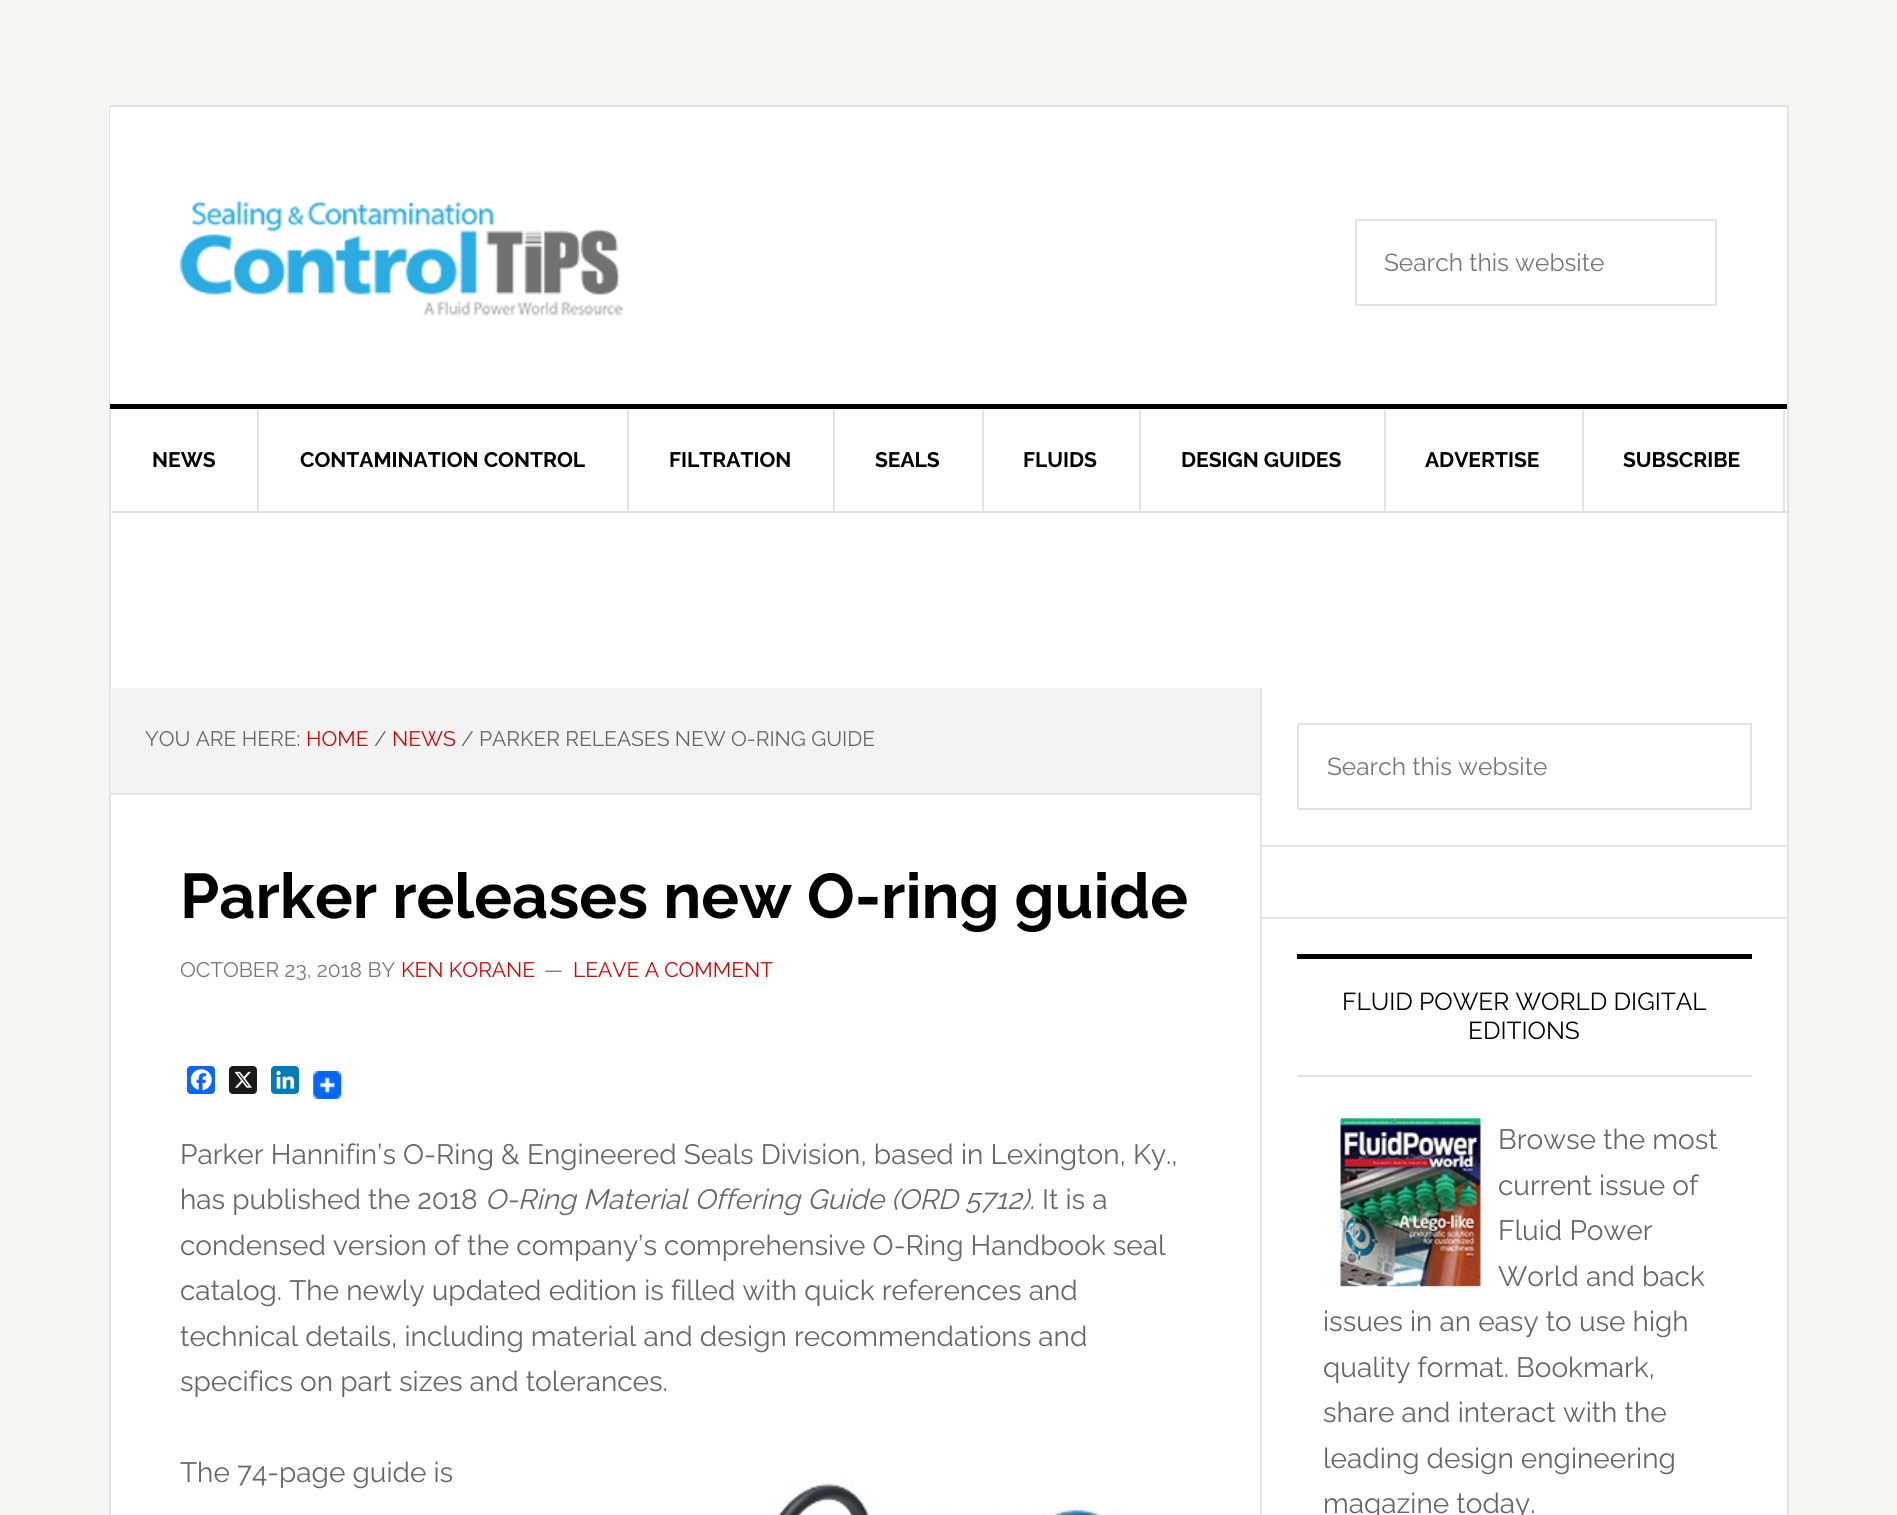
import math
import cairo

surface = cairo.ImageSurface(cairo.FORMAT_RGB24, 1897, 1515)
ctx = cairo.Context(surface)
options = cairo.FontOptions()
options.set_hint_metrics(cairo.HINT_METRICS_OFF)
options.set_hint_style(cairo.HINT_STYLE_NONE)
ctx.set_font_options(options)
ctx.set_miter_limit(4)


def set_color(code):
    ctx.set_source_rgb(*(v / 255 for v in bytes.fromhex(code[-6:])))


def draw_text(x, y, s, family, size, color, bold=False, italic=False):
    ctx.select_font_face(family, cairo.FONT_SLANT_ITALIC if italic else cairo.FONT_SLANT_NORMAL, cairo.FONT_WEIGHT_BOLD if bold else cairo.FONT_WEIGHT_NORMAL)
    ctx.set_font_size(size)
    set_color(color)
    ctx.move_to(x, y)
    ctx.show_text(s)


def fill_rect(x, y, w, h, color):
    set_color(color)
    ctx.rectangle(x, y, w, h)
    ctx.fill()


def rounded_rect(x, y, w, h, r):
    ctx.new_sub_path()
    for i, (u, v) in enumerate([(x + w - r, y + h - r), (x + r, y + h - r), (x + r, y + r), (x + w - r, y + r)]):
        ctx.arc(u, v, r, i * math.pi / 2, (i + 1) * math.pi / 2)
    ctx.close_path()


def draw_image(path, x, y, w, h):
    ctx.save()
    ctx.set_source_surface(cairo.ImageSurface.create_from_png(path), x, y)
    ctx.rectangle(x, y, w, h)
    ctx.fill()
    ctx.restore()


set_color("#f6f5f2")
ctx.paint()
fill_rect(111, 410, 1676, 1105, "#ffffff")
ctx.rectangle(110, 106, 1678, 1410)
set_color("#e3e3e3")
ctx.stroke()
fill_rect(110, 107, 1677, 303, "#ffffff")
fill_rect(110, 404, 1677, 5, "#000000")
draw_image("assets/img1.png", 180, 200, 444, 116)
ctx.rectangle(1356, 220, 360, 85)
set_color("#e3e3e3")
ctx.stroke()
draw_text(1384, 271, "Search this website", "Raleway", 24.5, "#767676")
fill_rect(110, 511, 1677, 2, "#e3e3e3")
fill_rect(257, 410, 2, 101, "#e3e3e3")
draw_text(152, 467, "NEWS", "Raleway", 21, "#000000", bold=True)
fill_rect(627, 410, 2, 101, "#e3e3e3")
draw_text(300, 467, "CONTAMINATION CONTROL", "Raleway", 21, "#000000", bold=True)
fill_rect(833, 410, 2, 101, "#e3e3e3")
draw_text(669, 467, "FILTRATION", "Raleway", 21, "#000000", bold=True)
fill_rect(982, 410, 2, 101, "#e3e3e3")
draw_text(875, 467, "SEALS", "Raleway", 21, "#000000", bold=True)
fill_rect(1139, 410, 2, 101, "#e3e3e3")
draw_text(1023, 467, "FLUIDS", "Raleway", 21, "#000000", bold=True)
fill_rect(1384, 410, 2, 101, "#e3e3e3")
draw_text(1181, 467, "DESIGN GUIDES", "Raleway", 21, "#000000", bold=True)
fill_rect(1582, 410, 2, 101, "#e3e3e3")
draw_text(1425, 467, "ADVERTISE", "Raleway", 21, "#000000", bold=True)
fill_rect(1783, 410, 2, 101, "#e3e3e3")
draw_text(1623, 467, "SUBSCRIBE", "Raleway", 21, "#000000", bold=True)
fill_rect(1260, 688, 2, 827, "#e3e3e3")
fill_rect(110, 688, 1150, 105, "#f3f3f3")
fill_rect(110, 793, 1150, 2, "#e3e3e3")
draw_text(145, 746, "YOU ARE HERE:", "Raleway", 21, "#666666")
draw_text(306, 746, "HOME", "Raleway", 21, "#db0000")
draw_text(374, 746, "/", "Raleway", 21, "#666666")
draw_text(392, 746, "NEWS", "Raleway", 21, "#db0000")
draw_text(461, 746, "/ PARKER RELEASES NEW O-RING GUIDE", "Raleway", 21, "#666666")
draw_text(180, 918, "Parker releases new O-ring guide", "Raleway", 63, "#000000", bold=True)
draw_text(180, 977, "OCTOBER 23, 2018 BY", "Raleway", 21, "#767676")
draw_text(401, 977, "KEN KORANE", "Raleway", 21, "#db0000")
draw_text(544, 977, "—", "Raleway", 21, "#767676")
draw_text(573, 977, "LEAVE A COMMENT", "Raleway", 21, "#db0000")
set_color("#0866ff")
rounded_rect(187, 1066, 28, 28, 4)
ctx.fill()
draw_image("assets/img2.png", 190, 1069, 22, 22)
set_color("#1a1a1a")
rounded_rect(229, 1066, 28, 28, 4)
ctx.fill()
draw_image("assets/img3.png", 234, 1071, 18, 17)
set_color("#007bb5")
rounded_rect(271, 1066, 28, 28, 4)
ctx.fill()
draw_image("assets/img4.png", 276, 1070, 19, 19)
draw_image("assets/img5.png", 313, 1071, 29, 28)
draw_text(180, 1164, "Parker Hannifin’s O-Ring & Engineered Seals Division, based in Lexington, Ky.,", "Raleway", 28, "#666666")
draw_text(180, 1209, "has published the 2018", "Raleway", 28, "#666666")
draw_text(485, 1209, "O-Ring Material Offering Guide (ORD 5712).", "Raleway", 28, "#666666", italic=True)
draw_text(1042, 1209, "It is a", "Raleway", 28, "#666666")
draw_text(180, 1255, "condensed version of the company’s comprehensive O-Ring Handbook seal", "Raleway", 28, "#666666")
draw_text(180, 1300, "catalog. The newly updated edition is filled with quick references and", "Raleway", 28, "#666666")
draw_text(180, 1346, "technical details, including material and design recommendations and", "Raleway", 28, "#666666")
draw_text(180, 1391, "specifics on part sizes and tolerances.", "Raleway", 28, "#666666")
draw_text(180, 1482, "The 74-page guide is", "Raleway", 28, "#666666")
draw_image("assets/img6.png", 772, 1479, 358, 36)
fill_rect(1262, 845, 525, 2, "#e3e3e3")
ctx.rectangle(1298, 724, 453, 85)
ctx.stroke()
draw_text(1327, 775, "Search this website", "Raleway", 24.5, "#767676")
fill_rect(1262, 917, 525, 2, "#e3e3e3")
fill_rect(1297, 954, 455, 5, "#000000")
fill_rect(1297, 1075, 455, 2, "#e3e3e3")
draw_text(1342, 1010, "FLUID POWER WORLD DIGITAL", "Raleway", 24.5, "#000000")
draw_text(1468, 1039, "EDITIONS", "Raleway", 24.5, "#000000")
draw_image("assets/img7.png", 1340, 1118, 141, 169)
draw_text(1498, 1149, "Browse the most", "Raleway", 28, "#666666")
draw_text(1498, 1195, "current issue of", "Raleway", 28, "#666666")
draw_text(1498, 1240, "Fluid Power", "Raleway", 28, "#666666")
draw_text(1498, 1286, "World and back", "Raleway", 28, "#666666")
draw_text(1323, 1331, "issues in an easy to use high", "Raleway", 28, "#666666")
draw_text(1323, 1377, "quality format. Bookmark,", "Raleway", 28, "#666666")
draw_text(1323, 1422, "share and interact with the", "Raleway", 28, "#666666")
draw_text(1323, 1468, "leading design engineering", "Raleway", 28, "#666666")
draw_text(1323, 1513, "magazine today.", "Raleway", 28, "#666666")
surface.write_to_png("output.png")
